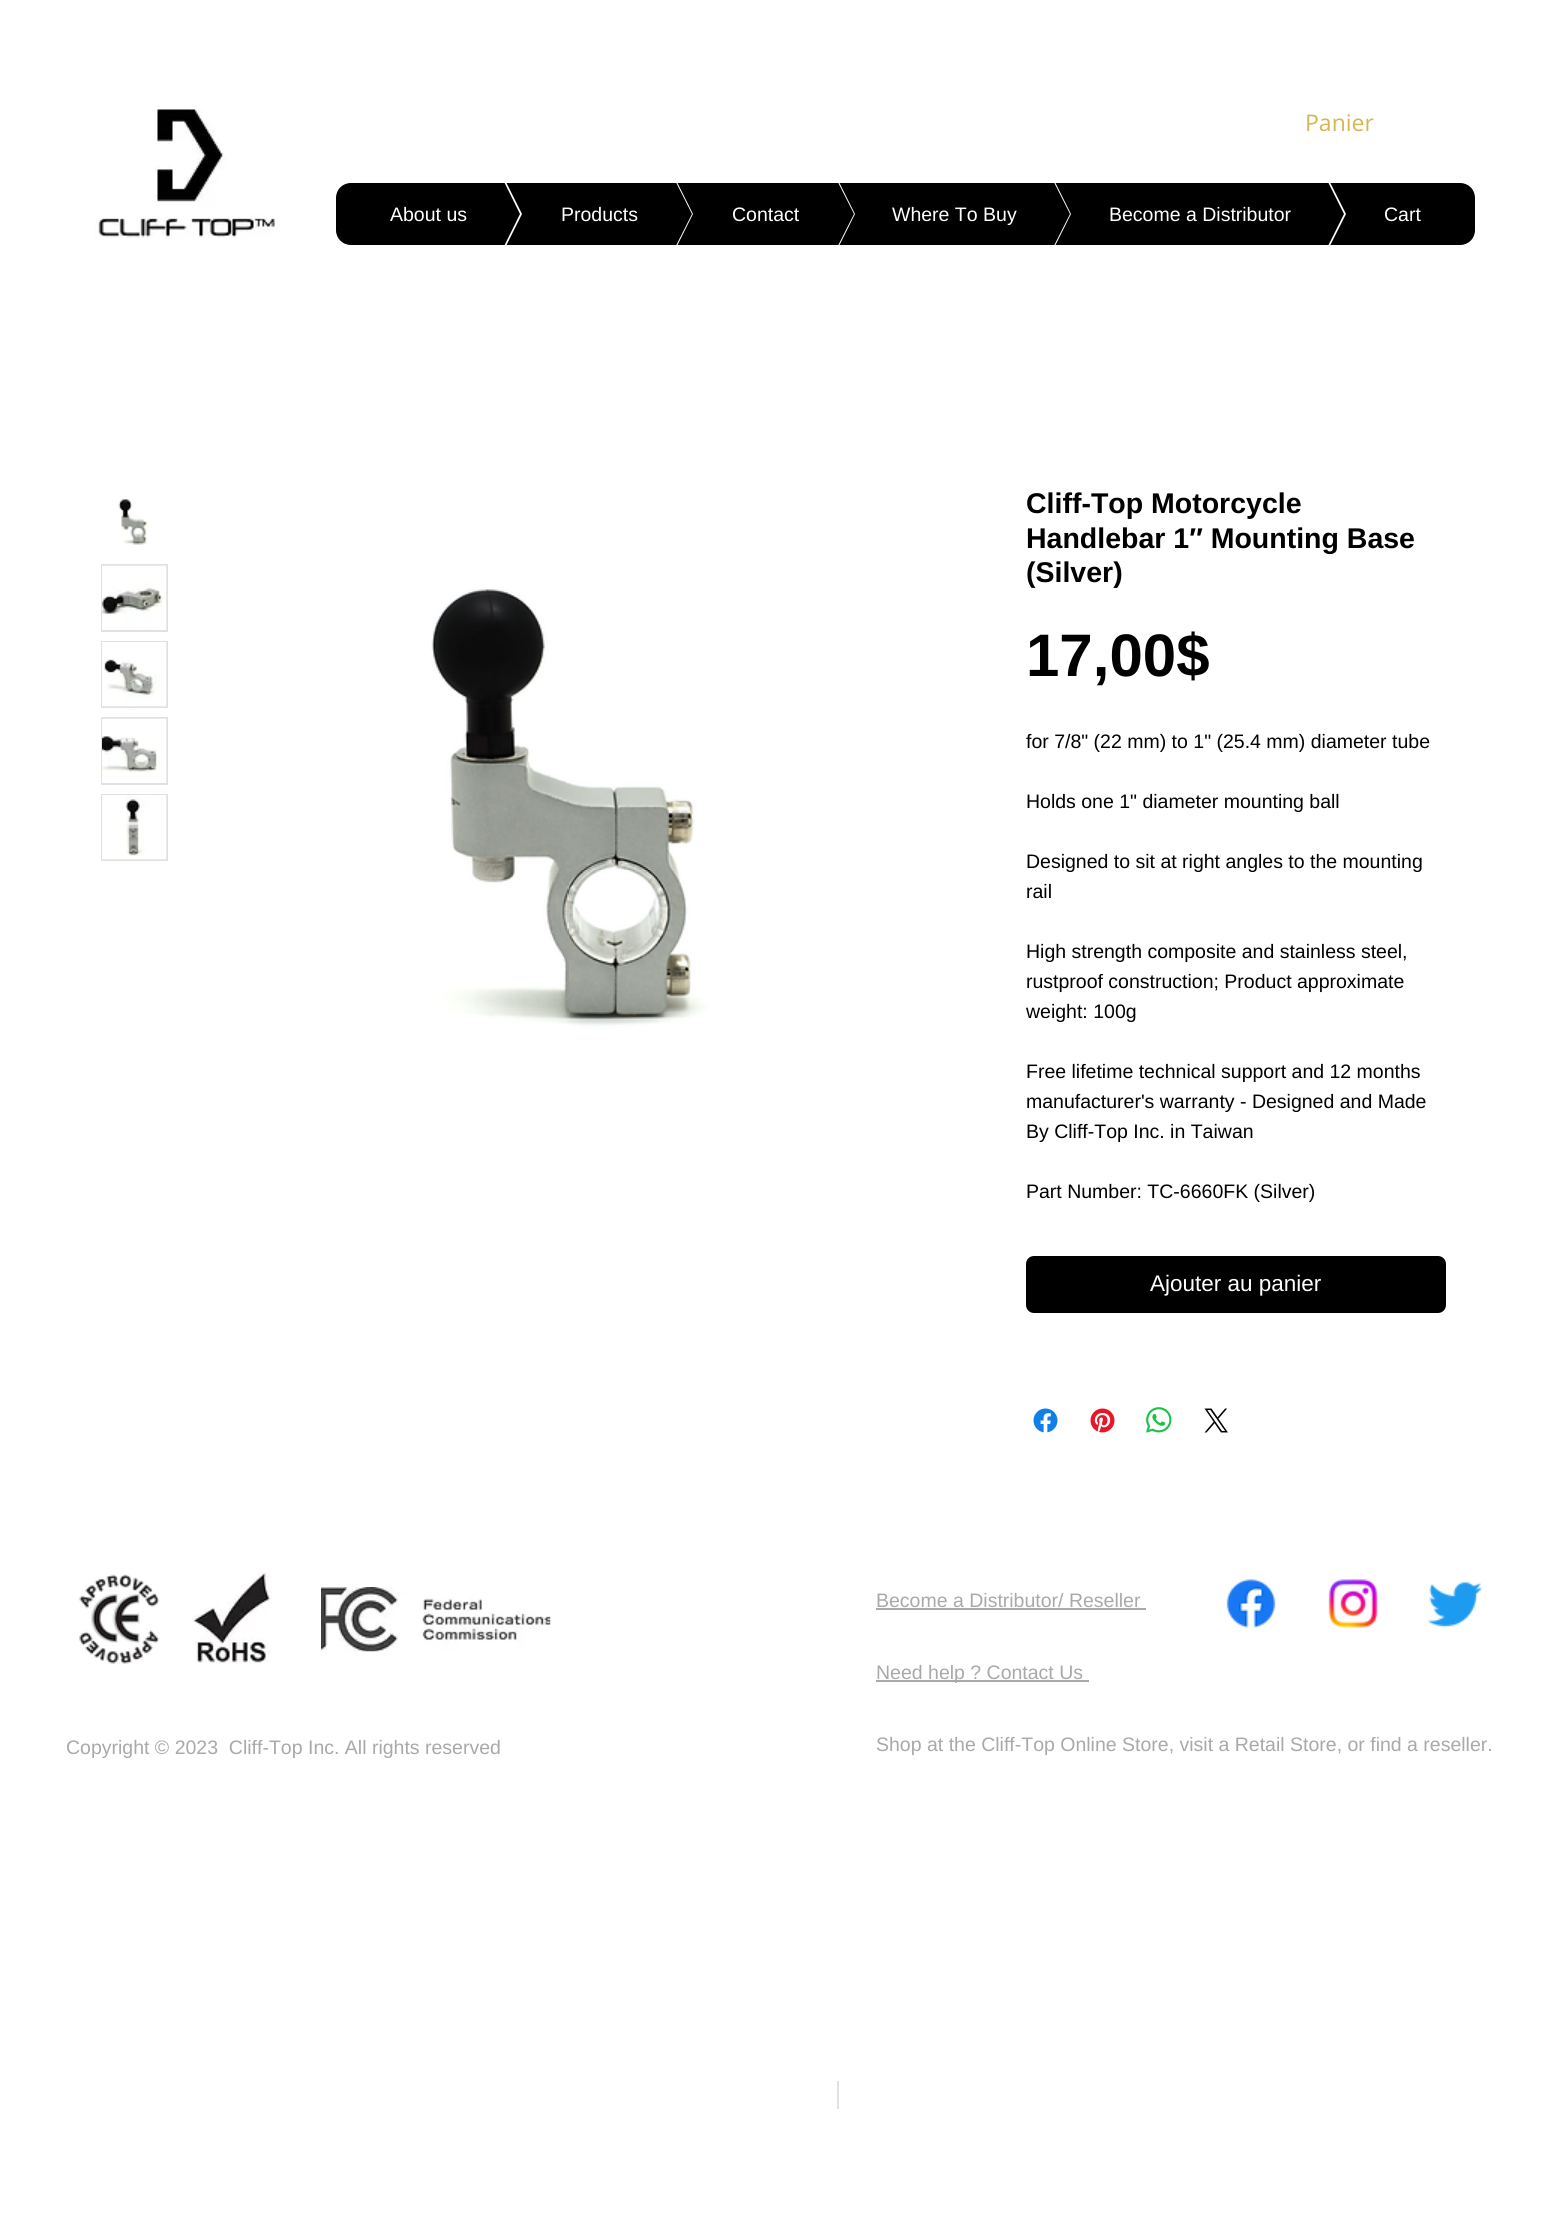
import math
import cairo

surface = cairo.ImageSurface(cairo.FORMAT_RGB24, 1542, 2222)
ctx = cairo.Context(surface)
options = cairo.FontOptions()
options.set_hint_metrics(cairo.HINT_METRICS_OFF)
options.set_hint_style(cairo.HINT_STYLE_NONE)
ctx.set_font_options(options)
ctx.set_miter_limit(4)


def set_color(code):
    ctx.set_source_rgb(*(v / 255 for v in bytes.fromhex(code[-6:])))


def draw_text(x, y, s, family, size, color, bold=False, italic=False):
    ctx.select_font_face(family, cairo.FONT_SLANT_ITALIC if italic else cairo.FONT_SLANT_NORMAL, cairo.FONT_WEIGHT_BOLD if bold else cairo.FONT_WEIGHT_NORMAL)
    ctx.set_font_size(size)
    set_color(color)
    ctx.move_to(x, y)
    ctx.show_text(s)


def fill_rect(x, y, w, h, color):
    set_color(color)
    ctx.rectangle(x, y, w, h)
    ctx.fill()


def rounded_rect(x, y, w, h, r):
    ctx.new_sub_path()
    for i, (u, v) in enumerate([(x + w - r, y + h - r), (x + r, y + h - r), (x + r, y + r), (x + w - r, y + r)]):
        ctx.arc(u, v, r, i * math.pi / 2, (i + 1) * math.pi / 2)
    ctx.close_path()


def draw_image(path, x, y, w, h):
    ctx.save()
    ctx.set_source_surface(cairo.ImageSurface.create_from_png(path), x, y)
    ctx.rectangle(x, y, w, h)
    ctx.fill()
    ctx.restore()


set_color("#ffffff")
ctx.paint()
draw_image("assets/img1.png", 95, 105, 180, 133)
draw_text(1305, 131, "Panier", "Open Sans", 23, "#d6b651")
set_color("#000000")
ctx.new_path()
ctx.move_to(351, 183)
ctx.line_to(416, 183)
ctx.line_to(416, 245)
ctx.line_to(351, 245)
ctx.curve_to(342.5, 245, 336, 238.5, 336, 230)
ctx.line_to(336, 198)
ctx.curve_to(336, 189.5, 342.5, 183, 351, 183)
ctx.close_path()
ctx.fill()
ctx.save()
ctx.rectangle(416, 183, 105, 62)
ctx.clip()
ctx.new_path()
ctx.move_to(520, 214)
ctx.line_to(416, 214)
ctx.line_to(416, 4)
ctx.close_path()
ctx.fill()
ctx.new_path()
ctx.move_to(416, 214)
ctx.line_to(520, 214)
ctx.line_to(416, 424)
ctx.close_path()
ctx.fill()
ctx.restore()
draw_text(390, 221, "About us", "Liberation Sans", 19.5, "#ffffff")
ctx.save()
ctx.rectangle(417, 183, 105, 62)
ctx.clip()
set_color("#000000")
ctx.new_path()
ctx.move_to(417, 4)
ctx.line_to(522, 4)
ctx.line_to(522, 214)
ctx.close_path()
ctx.move_to(522, 424)
ctx.line_to(417, 424)
ctx.line_to(522, 214)
ctx.close_path()
ctx.fill()
ctx.restore()
fill_rect(522, 183, 65, 62, "#000000")
ctx.save()
ctx.rectangle(587, 183, 105, 62)
ctx.clip()
ctx.new_path()
ctx.move_to(692, 214)
ctx.line_to(586, 214)
ctx.line_to(586, 4)
ctx.close_path()
ctx.fill()
ctx.new_path()
ctx.move_to(586, 214)
ctx.line_to(692, 214)
ctx.line_to(586, 424)
ctx.close_path()
ctx.fill()
ctx.restore()
draw_text(561, 221, "Products", "Liberation Sans", 19.5, "#ffffff")
ctx.save()
ctx.rectangle(588, 183, 105, 62)
ctx.clip()
set_color("#000000")
ctx.new_path()
ctx.move_to(588, 4)
ctx.line_to(693, 4)
ctx.line_to(693, 214)
ctx.close_path()
ctx.move_to(693, 424)
ctx.line_to(588, 424)
ctx.line_to(693, 214)
ctx.close_path()
ctx.fill()
ctx.restore()
fill_rect(693, 183, 56, 62, "#000000")
ctx.save()
ctx.rectangle(749, 183, 105, 62)
ctx.clip()
ctx.new_path()
ctx.move_to(854, 214)
ctx.line_to(748, 214)
ctx.line_to(748, 4)
ctx.close_path()
ctx.fill()
ctx.new_path()
ctx.move_to(748, 214)
ctx.line_to(854, 214)
ctx.line_to(748, 424)
ctx.close_path()
ctx.fill()
ctx.restore()
draw_text(732, 221, "Contact", "Liberation Sans", 19.5, "#ffffff")
ctx.save()
ctx.rectangle(750, 183, 105, 62)
ctx.clip()
set_color("#000000")
ctx.new_path()
ctx.move_to(750, 4)
ctx.line_to(855, 4)
ctx.line_to(855, 214)
ctx.close_path()
ctx.move_to(855, 424)
ctx.line_to(750, 424)
ctx.line_to(855, 214)
ctx.close_path()
ctx.fill()
ctx.restore()
fill_rect(855, 183, 110, 62, "#000000")
ctx.save()
ctx.rectangle(965, 183, 105, 62)
ctx.clip()
ctx.new_path()
ctx.move_to(1070, 214)
ctx.line_to(964, 214)
ctx.line_to(964, 4)
ctx.close_path()
ctx.fill()
ctx.new_path()
ctx.move_to(964, 214)
ctx.line_to(1070, 214)
ctx.line_to(964, 424)
ctx.close_path()
ctx.fill()
ctx.restore()
draw_text(892, 221, "Where To Buy", "Liberation Sans", 19.5, "#ffffff")
ctx.save()
ctx.rectangle(966, 183, 105, 62)
ctx.clip()
set_color("#000000")
ctx.new_path()
ctx.move_to(966, 4)
ctx.line_to(1071, 4)
ctx.line_to(1071, 214)
ctx.close_path()
ctx.move_to(1071, 424)
ctx.line_to(966, 424)
ctx.line_to(1071, 214)
ctx.close_path()
ctx.fill()
ctx.restore()
fill_rect(1071, 183, 168, 62, "#000000")
ctx.save()
ctx.rectangle(1239, 183, 105, 62)
ctx.clip()
ctx.new_path()
ctx.move_to(1344, 214)
ctx.line_to(1239, 214)
ctx.line_to(1239, 4)
ctx.close_path()
ctx.fill()
ctx.new_path()
ctx.move_to(1239, 214)
ctx.line_to(1344, 214)
ctx.line_to(1239, 424)
ctx.close_path()
ctx.fill()
ctx.restore()
draw_text(1109, 221, "Become a Distributor", "Liberation Sans", 19.5, "#ffffff")
ctx.save()
ctx.rectangle(1241, 183, 105, 62)
ctx.clip()
set_color("#000000")
ctx.new_path()
ctx.move_to(1240, 4)
ctx.line_to(1346, 4)
ctx.line_to(1346, 214)
ctx.close_path()
ctx.move_to(1346, 424)
ctx.line_to(1240, 424)
ctx.line_to(1346, 214)
ctx.close_path()
ctx.fill()
ctx.restore()
fill_rect(1346, 183, 24, 62, "#000000")
ctx.new_path()
ctx.move_to(1370, 183)
ctx.line_to(1460, 183)
ctx.curve_to(1468.5, 183, 1475, 189.5, 1475, 198)
ctx.line_to(1475, 230)
ctx.curve_to(1475, 238.5, 1468.5, 245, 1460, 245)
ctx.line_to(1370, 245)
ctx.close_path()
ctx.fill()
draw_text(1384, 221, "Cart", "Liberation Sans", 19.5, "#ffffff")
draw_image("assets/img2.png", 118, 499, 30, 46)
ctx.rectangle(102, 565, 65, 66)
set_color("#e1e1e1")
ctx.stroke()
draw_image("assets/img3.png", 102, 565, 65, 65)
ctx.rectangle(102, 642, 65, 65)
ctx.stroke()
draw_image("assets/img4.png", 102, 642, 65, 65)
ctx.rectangle(102, 718, 65, 66)
ctx.stroke()
draw_image("assets/img5.png", 102, 718, 65, 65)
ctx.rectangle(102, 795, 65, 65)
ctx.stroke()
draw_image("assets/img6.png", 102, 795, 65, 65)
draw_image("assets/img7.png", 431, 589, 278, 439)
draw_text(1026, 513, "Cliff-Top Motorcycle", "Liberation Sans", 28.5, "#000000", bold=True)
draw_text(1026, 548, "Handlebar 1″ Mounting Base", "Liberation Sans", 28.5, "#000000", bold=True)
draw_text(1026, 582, "(Silver)", "Liberation Sans", 28.5, "#000000", bold=True)
draw_text(1026, 676, "17,00$", "Liberation Sans", 60, "#000000", bold=True)
draw_text(1026, 748, "for 7/8\" (22 mm) to 1\" (25.4 mm) diameter tube", "Liberation Sans", 19.5, "#000000")
draw_text(1026, 808, "Holds one 1\" diameter mounting ball", "Liberation Sans", 19.5, "#000000")
draw_text(1026, 868, "Designed to sit at right angles to the mounting", "Liberation Sans", 19.5, "#000000")
draw_text(1026, 898, "rail", "Liberation Sans", 19.5, "#000000")
draw_text(1026, 958, "High strength composite and stainless steel,", "Liberation Sans", 19.5, "#000000")
draw_text(1026, 988, "rustproof construction; Product approximate", "Liberation Sans", 19.5, "#000000")
draw_text(1026, 1018, "weight: 100g", "Liberation Sans", 19.5, "#000000")
draw_text(1026, 1078, "Free lifetime technical support and 12 months", "Liberation Sans", 19.5, "#000000")
draw_text(1026, 1108, "manufacturer's warranty - Designed and Made", "Liberation Sans", 19.5, "#000000")
draw_text(1026, 1138, "By Cliff-Top Inc. in Taiwan", "Liberation Sans", 19.5, "#000000")
draw_text(1026, 1198, "Part Number: TC-6660FK (Silver)", "Liberation Sans", 19.5, "#000000")
rounded_rect(1026, 1256, 420, 57, 8)
ctx.fill()
draw_text(1150, 1291, "Ajouter au panier", "Liberation Sans", 22.5, "#ffffff")
draw_image("assets/img8.png", 1033, 1408, 25, 25)
draw_image("assets/img9.png", 1090, 1408, 25, 25)
draw_image("assets/img10.png", 1146, 1407, 26, 26)
draw_image("assets/img11.png", 1204, 1408, 24, 25)
draw_image("assets/img12.png", 79, 1574, 81, 90)
draw_image("assets/img13.png", 192, 1572, 79, 91)
draw_image("assets/img14.png", 321, 1587, 230, 65)
draw_text(876, 1607, "Become a Distributor/ Reseller", "Liberation Sans", 19.5, "#aaa8a8")
fill_rect(876, 1608, 270, 2, "#aaa8a8")
draw_image("assets/img15.png", 1226, 1579, 50, 49)
draw_image("assets/img16.png", 1328, 1579, 50, 49)
draw_image("assets/img17.png", 1428, 1582, 55, 46)
fill_rect(876, 1680, 213, 2, "#aaa8a8")
draw_text(876, 1679, "Need help ? Contact Us", "Liberation Sans", 19.5, "#aaa8a8")
draw_text(66, 1754, "Copyright © 2023  Cliff-Top Inc. All rights reserved", "Liberation Sans", 19.5, "#aaa8a8")
draw_text(876, 1751, "Shop at the Cliff-Top Online Store, visit a Retail Store, or find a reseller.", "Liberation Sans", 19.5, "#aaa8a8")
fill_rect(837, 2081, 2, 28, "#e1e1e1")
surface.write_to_png("output.png")
